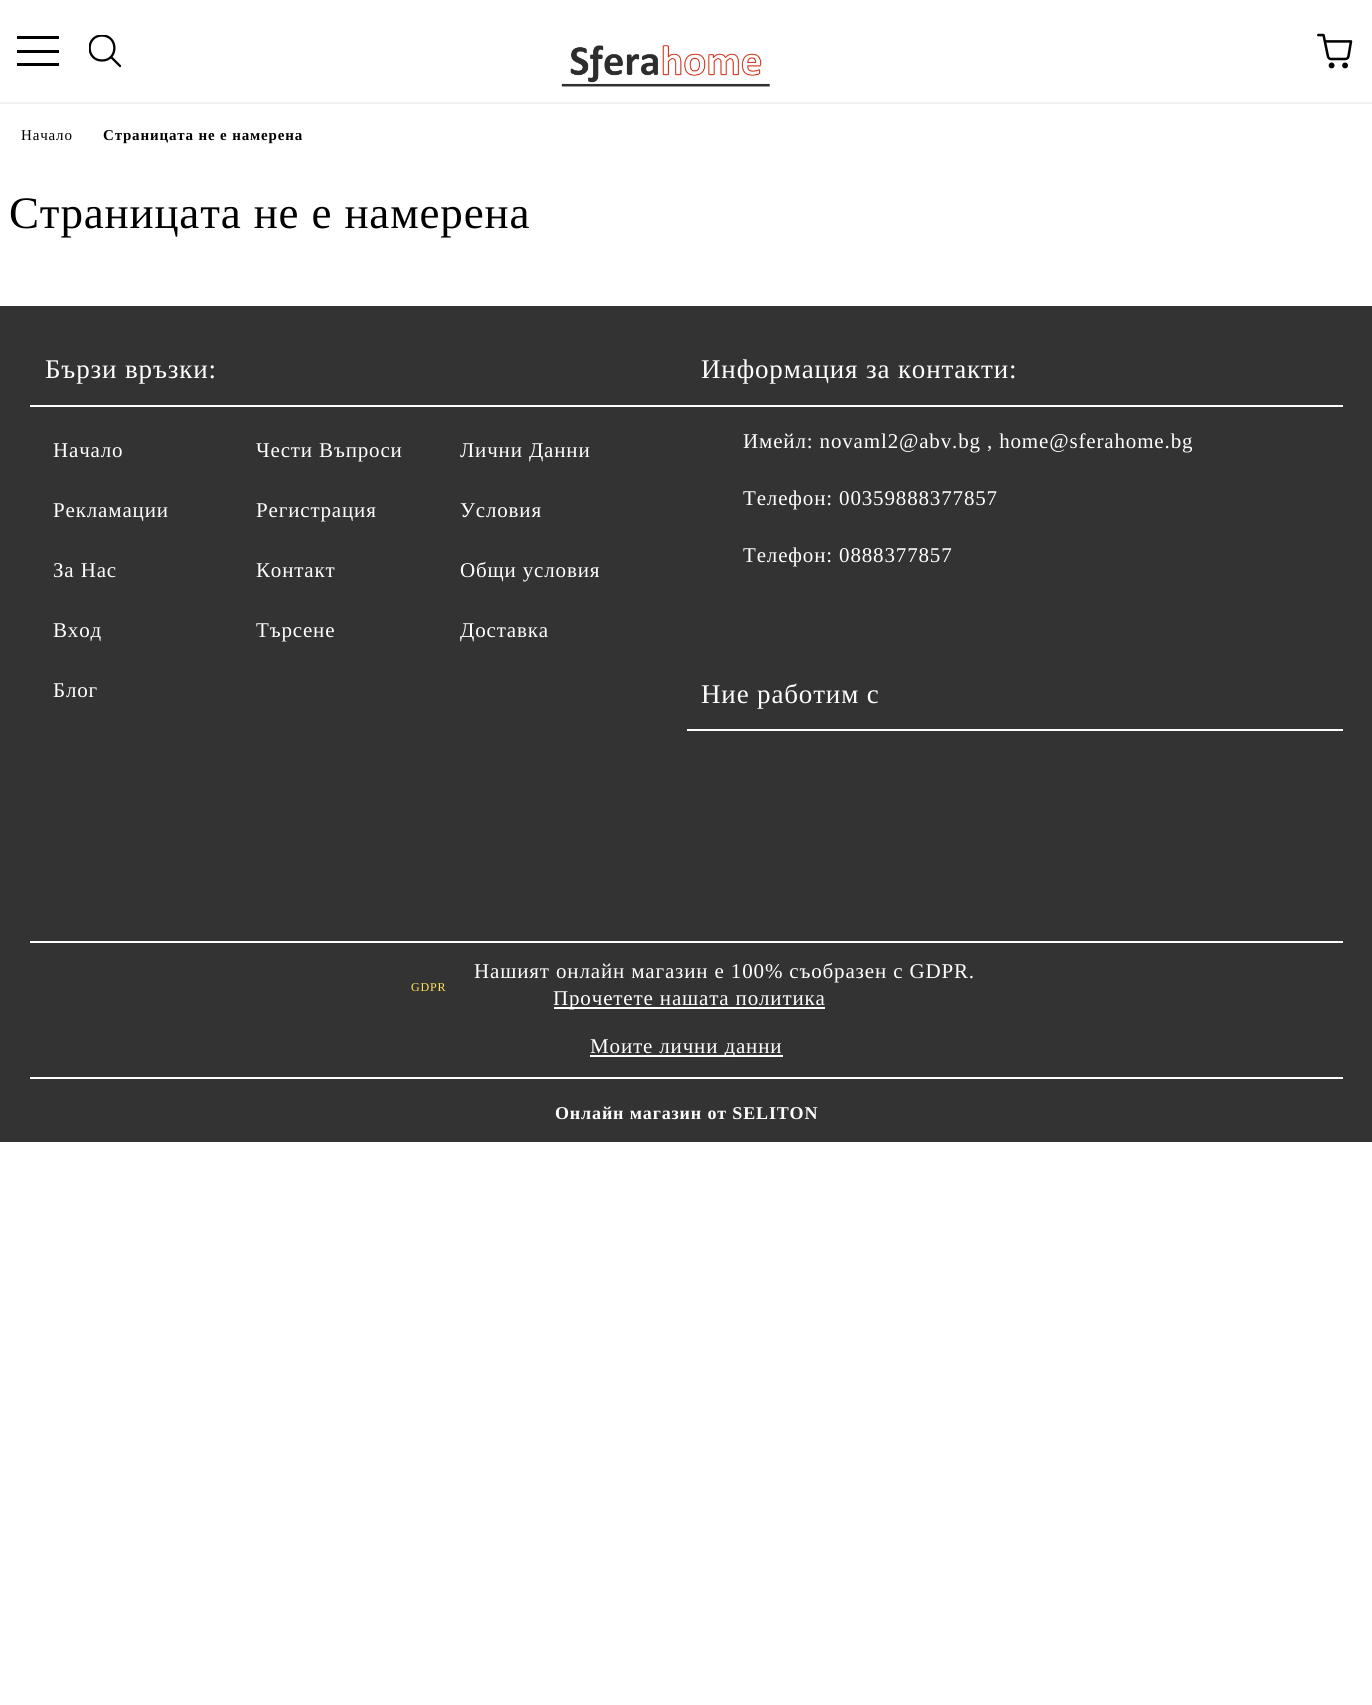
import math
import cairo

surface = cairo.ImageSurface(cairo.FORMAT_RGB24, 1372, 1705)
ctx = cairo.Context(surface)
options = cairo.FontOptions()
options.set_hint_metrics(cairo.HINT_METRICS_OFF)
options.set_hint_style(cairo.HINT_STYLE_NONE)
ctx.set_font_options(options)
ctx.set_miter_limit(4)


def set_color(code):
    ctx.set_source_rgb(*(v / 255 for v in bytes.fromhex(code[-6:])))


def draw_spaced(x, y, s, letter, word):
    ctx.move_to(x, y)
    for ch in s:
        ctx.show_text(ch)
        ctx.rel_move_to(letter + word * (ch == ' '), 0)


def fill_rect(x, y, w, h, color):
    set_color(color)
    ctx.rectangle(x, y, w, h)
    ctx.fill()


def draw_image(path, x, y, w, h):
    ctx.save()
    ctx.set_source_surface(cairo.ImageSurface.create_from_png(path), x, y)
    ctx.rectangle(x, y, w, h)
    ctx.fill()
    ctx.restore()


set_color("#ffffff")
ctx.paint()
fill_rect(0, 102, 1372, 2, "#f1f1f1")
fill_rect(17, 36, 42, 3, "#000000")
fill_rect(17, 50, 42, 3, "#000000")
fill_rect(17, 63, 42, 3, "#000000")
ctx.save()
ctx.rectangle(89, 35, 33, 33)
ctx.clip()
ctx.new_path()
ctx.move_to(102, 35.5)
ctx.curve_to(85.5, 35.5, 85.5, 60.5, 102, 60.5)
ctx.curve_to(118.5, 60.5, 118.5, 35.5, 102, 35.5)
ctx.close_path()
ctx.set_line_width(2.3)
ctx.stroke()
ctx.restore()
ctx.new_path()
ctx.move_to(111, 57)
ctx.line_to(120, 66)
ctx.set_line_width(2.3)
ctx.set_line_cap(cairo.LINE_CAP_ROUND)
ctx.stroke()
draw_image("assets/img1.png", 561, 45, 209, 42)
draw_image("assets/img2.png", 1317, 33, 36, 36)
ctx.select_font_face("Liberation Serif")
ctx.set_font_size(15)
draw_spaced(21, 140, "Начало", 0.85, 0)
ctx.select_font_face("Liberation Serif", cairo.FONT_SLANT_NORMAL, cairo.FONT_WEIGHT_BOLD)
draw_spaced(103, 140, "Страницата не е намерена", 0.85, 0)
ctx.select_font_face("Liberation Serif")
ctx.set_font_size(45)
draw_spaced(9, 228, "Страницата не е намерена", 0.85, 0)
fill_rect(0, 306, 1372, 836, "#333333")
fill_rect(30, 405, 1313, 2, "#ffffff")
ctx.set_font_size(27)
draw_spaced(45, 378, "Бързи връзки:", 0.85, 0)
ctx.set_font_size(21)
draw_spaced(53, 457, "Начало", 0.85, 0)
draw_spaced(53, 517, "Рекламации", 0.85, 0)
draw_spaced(53, 577, "За Нас", 0.85, 0)
draw_spaced(53, 637, "Вход", 0.85, 0)
draw_spaced(256, 457, "Чести Въпроси", 0.85, 0)
draw_spaced(256, 517, "Регистрация", 0.85, 0)
draw_spaced(256, 577, "Контакт", 0.85, 0)
draw_spaced(256, 637, "Търсене", 0.85, 0)
draw_spaced(460, 457, "Лични Данни", 0.85, 0)
draw_spaced(460, 517, "Условия", 0.85, 0)
draw_spaced(460, 577, "Общи условия", 0.85, 0)
draw_spaced(460, 637, "Доставка", 0.85, 0)
draw_spaced(53, 697, "Блог", 0.85, 0)
ctx.set_font_size(27)
draw_spaced(701, 378, "Информация за контакти:", 0.85, 0)
ctx.set_font_size(21)
draw_spaced(743, 448, "Имейл: novaml2@abv.bg , home@sferahome.bg", 0.85, 0)
draw_spaced(743, 505, "Телефон: 00359888377857", 0.85, 0)
draw_spaced(743, 562, "Телефон: 0888377857", 0.85, 0)
fill_rect(687, 729, 656, 2, "#ffffff")
ctx.set_font_size(27)
draw_spaced(701, 703, "Ние работим с", 0.85, 0)
fill_rect(30, 941, 1313, 2, "#ffffff")
ctx.set_font_size(21)
draw_spaced(474, 978, "Нашият онлайн магазин е 100% съобразен с GDPR.", 0.85, 0)
ctx.set_font_size(12)
set_color("#ffe15a")
draw_spaced(411, 991, "GDPR", 0.85, 0)
fill_rect(554, 1007, 271, 2, "#ffffff")
ctx.set_font_size(21)
draw_spaced(553, 1005, "Прочетете нашата политика", 0.85, 0)
fill_rect(590, 1055, 193, 2, "#ffffff")
draw_spaced(590, 1053, "Моите лични данни", 0.85, 0)
fill_rect(30, 1077, 1313, 2, "#ffffff")
ctx.select_font_face("Liberation Serif", cairo.FONT_SLANT_NORMAL, cairo.FONT_WEIGHT_BOLD)
ctx.set_font_size(18)
draw_spaced(555, 1119, "Онлайн магазин от SELITON", 0.85, 0)
surface.write_to_png("output.png")
